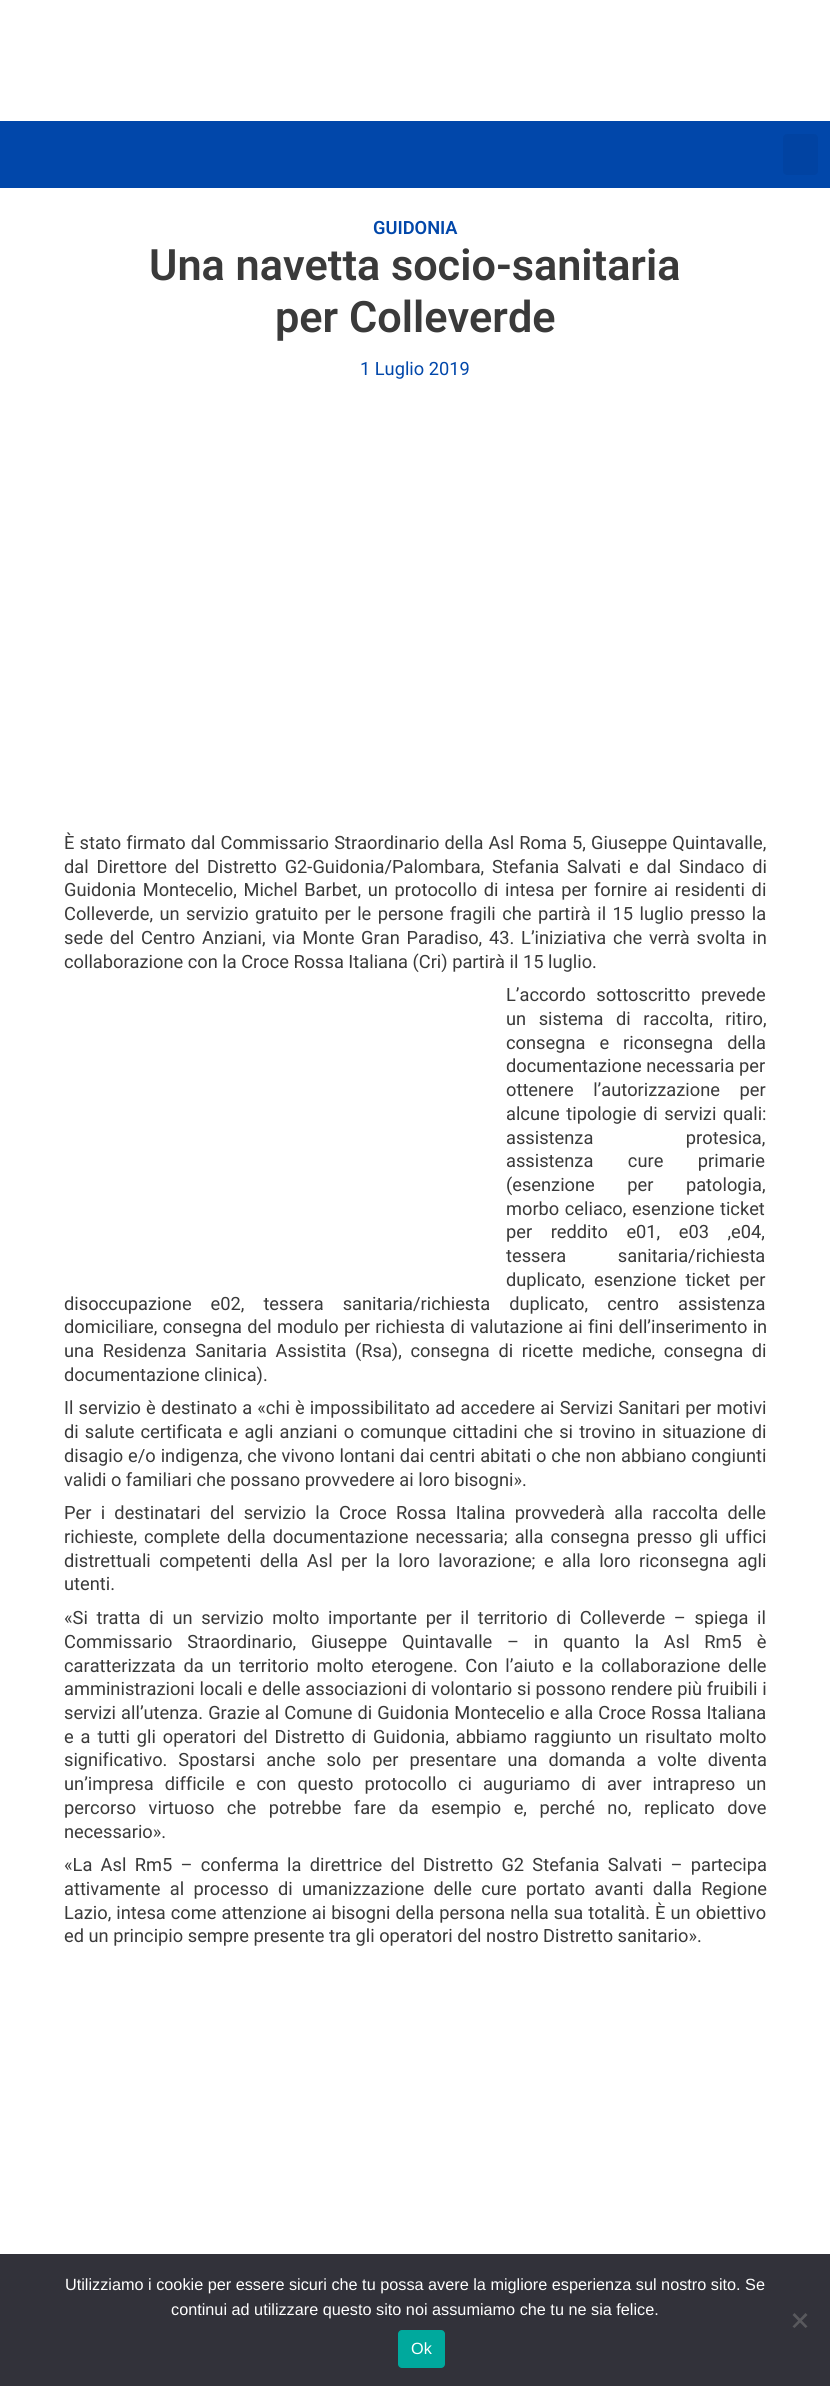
import math
import cairo

surface = cairo.ImageSurface(cairo.FORMAT_RGB24, 830, 2386)
ctx = cairo.Context(surface)
options = cairo.FontOptions()
options.set_hint_metrics(cairo.HINT_METRICS_OFF)
options.set_hint_style(cairo.HINT_STYLE_NONE)
ctx.set_font_options(options)
ctx.set_miter_limit(4)


def set_color(code):
    ctx.set_source_rgb(*(v / 255 for v in bytes.fromhex(code[-6:])))


def draw_text(x, y, s, family, size, color, bold=False, italic=False):
    ctx.select_font_face(family, cairo.FONT_SLANT_ITALIC if italic else cairo.FONT_SLANT_NORMAL, cairo.FONT_WEIGHT_BOLD if bold else cairo.FONT_WEIGHT_NORMAL)
    ctx.set_font_size(size)
    set_color(color)
    ctx.move_to(x, y)
    ctx.show_text(s)


def draw_spaced(x, y, s, letter, word):
    ctx.move_to(x, y)
    for ch in s:
        ctx.show_text(ch)
        ctx.rel_move_to(letter + word * (ch == ' '), 0)


def fill_rect(x, y, w, h, color):
    set_color(color)
    ctx.rectangle(x, y, w, h)
    ctx.fill()


def rounded_rect(x, y, w, h, r):
    ctx.new_sub_path()
    for i, (u, v) in enumerate([(x + w - r, y + h - r), (x + r, y + h - r), (x + r, y + r), (x + w - r, y + r)]):
        ctx.arc(u, v, r, i * math.pi / 2, (i + 1) * math.pi / 2)
    ctx.close_path()


set_color("#ffffff")
ctx.paint()
fill_rect(0, 121, 830, 67, "#0147aa")
set_color("#0143a2")
rounded_rect(783, 134, 35, 41, 4)
ctx.fill()
draw_text(373, 234, "GUIDONIA", "Roboto SemiBold", 18.25, "#0147aa")
draw_text(149, 280, "Una navetta socio-sanitaria", "Roboto SemiBold", 43.25, "#3a3a3a")
draw_text(275, 332, "per Colleverde", "Roboto SemiBold", 43.25, "#3a3a3a")
draw_text(360, 375, "1 Luglio 2019", "Roboto", 18.25, "#0147aa")
set_color("#3a3a3a")
draw_spaced(64, 849, "È stato firmato dal Commissario Straordinario della Asl Roma 5, Giuseppe Quintavalle,", 0, 0.6)
draw_spaced(64, 873, "dal Direttore del Distretto G2-Guidonia/Palombara, Stefania Salvati e dal Sindaco di", 0, 3.25)
draw_spaced(64, 896, "Guidonia Montecelio, Michel Barbet, un protocollo di intesa per fornire ai residenti di", 0, 2.1)
draw_spaced(64, 920, "Colleverde, un servizio gratuito per le persone fragili che partirà il 15 luglio presso la", 0, 1.9)
draw_spaced(64, 944, "sede del Centro Anziani, via Monte Gran Paradiso, 43. L’iniziativa che verrà svolta in", 0, 2.25)
draw_text(64, 968, "collaborazione con la Croce Rossa Italiana (Cri) partirà il 15 luglio.", "Roboto", 18.25, "#3a3a3a")
draw_spaced(506, 1001, "L’accordo sottoscritto prevede", 0, 6)
draw_spaced(506, 1025, "un sistema di raccolta, ritiro,", 0, 8)
draw_spaced(506, 1049, "consegna e riconsegna della", 0, 9.5)
draw_text(506, 1072, "documentazione necessaria per", "Roboto", 18.25, "#3a3a3a")
draw_spaced(506, 1096, "ottenere l’autorizzazione per", 0, 15)
draw_spaced(506, 1120, "alcune tipologie di servizi quali:", 0, 2)
draw_spaced(506, 1144, "assistenza protesica,", 0, 88)
draw_spaced(506, 1167, "assistenza cure primarie", 0, 30)
draw_spaced(506, 1191, "(esenzione per patologia,", 0, 28)
draw_spaced(506, 1215, "morbo celiaco, esenzione ticket", 0, 1)
draw_spaced(506, 1238, "per reddito e01, e03 ,e04,", 0, 14)
draw_spaced(506, 1262, "tessera sanitaria/richiesta", 0, 47)
draw_spaced(506, 1286, "duplicato, esenzione ticket per", 0, 4.5)
draw_spaced(64, 1310, "disoccupazione e02, tessera sanitaria/richiesta duplicato, centro assistenza", 0, 14.5)
draw_spaced(64, 1333, "domiciliare, consegna del modulo per richiesta di valutazione ai fini dell’inserimento in", 0, 0.75)
draw_spaced(64, 1357, "una Residenza Sanitaria Assistita (Rsa), consegna di ricette mediche, consegna di", 0, 4.1)
draw_text(64, 1381, "documentazione clinica).", "Roboto", 18.25, "#3a3a3a")
draw_spaced(64, 1414, "Il servizio è destinato a «chi è impossibilitato ad accedere ai Servizi Sanitari per motivi", 0, 0.6)
draw_spaced(64, 1438, "di salute certificata e agli anziani o comunque cittadini che si trovino in situazione di", 0, 1.6)
draw_spaced(64, 1462, "disagio e/o indigenza, che vivono lontani dai centri abitati o che non abbiano congiunti", 0, 0.4)
draw_text(64, 1486, "validi o familiari che possano provvedere ai loro bisogni».", "Roboto", 18.25, "#3a3a3a")
draw_spaced(64, 1519, "Per i destinatari del servizio la Croce Rossa Italina provvederà alla raccolta delle", 0, 4.75)
draw_spaced(64, 1543, "richieste, complete della documentazione necessaria; alla consegna presso gli uffici", 0, 2.5)
draw_spaced(64, 1567, "distrettuali competenti della Asl per la loro lavorazione; e alla loro riconsegna agli", 0, 3.9)
draw_text(64, 1590, "utenti.", "Roboto", 18.25, "#3a3a3a")
draw_spaced(64, 1624, "«Si tratta di un servizio molto importante per il territorio di Colleverde – spiega il", 0, 4.1)
draw_spaced(64, 1648, "Commissario Straordinario, Giuseppe Quintavalle – in quanto la Asl Rm5 è", 0, 10.25)
draw_spaced(64, 1672, "caratterizzata da un territorio molto eterogene. Con l’aiuto e la collaborazione delle", 0, 3.1)
draw_spaced(64, 1695, "amministrazioni locali e delle associazioni di volontario si possono rendere più fruibili i", 0, 0.25)
draw_spaced(64, 1719, "servizi all’utenza. Grazie al Comune di Guidonia Montecelio e alla Croce Rossa Italiana", 0, 0.5)
draw_spaced(64, 1743, "e a tutti gli operatori del Distretto di Guidonia, abbiamo raggiunto un risultato molto", 0, 2.4)
draw_spaced(64, 1766, "significativo. Spostarsi anche solo per presentare una domanda a volte diventa", 0, 6.5)
draw_spaced(64, 1790, "un’impresa difficile e con questo protocollo ci auguriamo di aver intrapreso un", 0, 6.5)
draw_spaced(64, 1814, "percorso virtuoso che potrebbe fare da esempio e, perché no, replicato dove", 0, 8)
draw_text(64, 1838, "necessario».", "Roboto", 18.25, "#3a3a3a")
draw_spaced(64, 1871, "«La Asl Rm5 – conferma la direttrice del Distretto G2 Stefania Salvati – partecipa", 0, 3.75)
draw_spaced(64, 1895, "attivamente al processo di umanizzazione delle cure portato avanti dalla Regione", 0, 4.75)
draw_spaced(64, 1919, "Lazio, intesa come attenzione ai bisogni della persona nella sua totalità. È un obiettivo", 0, 0.5)
draw_text(64, 1942, "ed un principio sempre presente tra gli operatori del nostro Distretto sanitario».", "Roboto", 18.25, "#3a3a3a")
fill_rect(0, 2254, 830, 132, "#32323a")
draw_text(65, 2290, "Utilizziamo i cookie per essere sicuri che tu possa avere la migliore esperienza sul nostro sito. Se", "Liberation Sans", 16.25, "#ffffff")
draw_text(171, 2315, "continui ad utilizzare questo sito noi assumiamo che tu ne sia felice.", "Liberation Sans", 16.25, "#ffffff")
set_color("#59595d")
ctx.new_path()
ctx.move_to(805.5, 2313)
ctx.line_to(807.5, 2315)
ctx.line_to(794.5, 2328)
ctx.line_to(792.5, 2326.5)
ctx.close_path()
ctx.fill()
ctx.new_path()
ctx.move_to(792.5, 2315)
ctx.line_to(794.5, 2313)
ctx.line_to(807.5, 2326.5)
ctx.line_to(805.5, 2328)
ctx.close_path()
ctx.fill()
set_color("#00a99d")
rounded_rect(398, 2330, 47, 38, 4)
ctx.fill()
draw_text(411, 2354, "Ok", "Liberation Sans", 16.25, "#ffffff")
surface.write_to_png("output.png")
